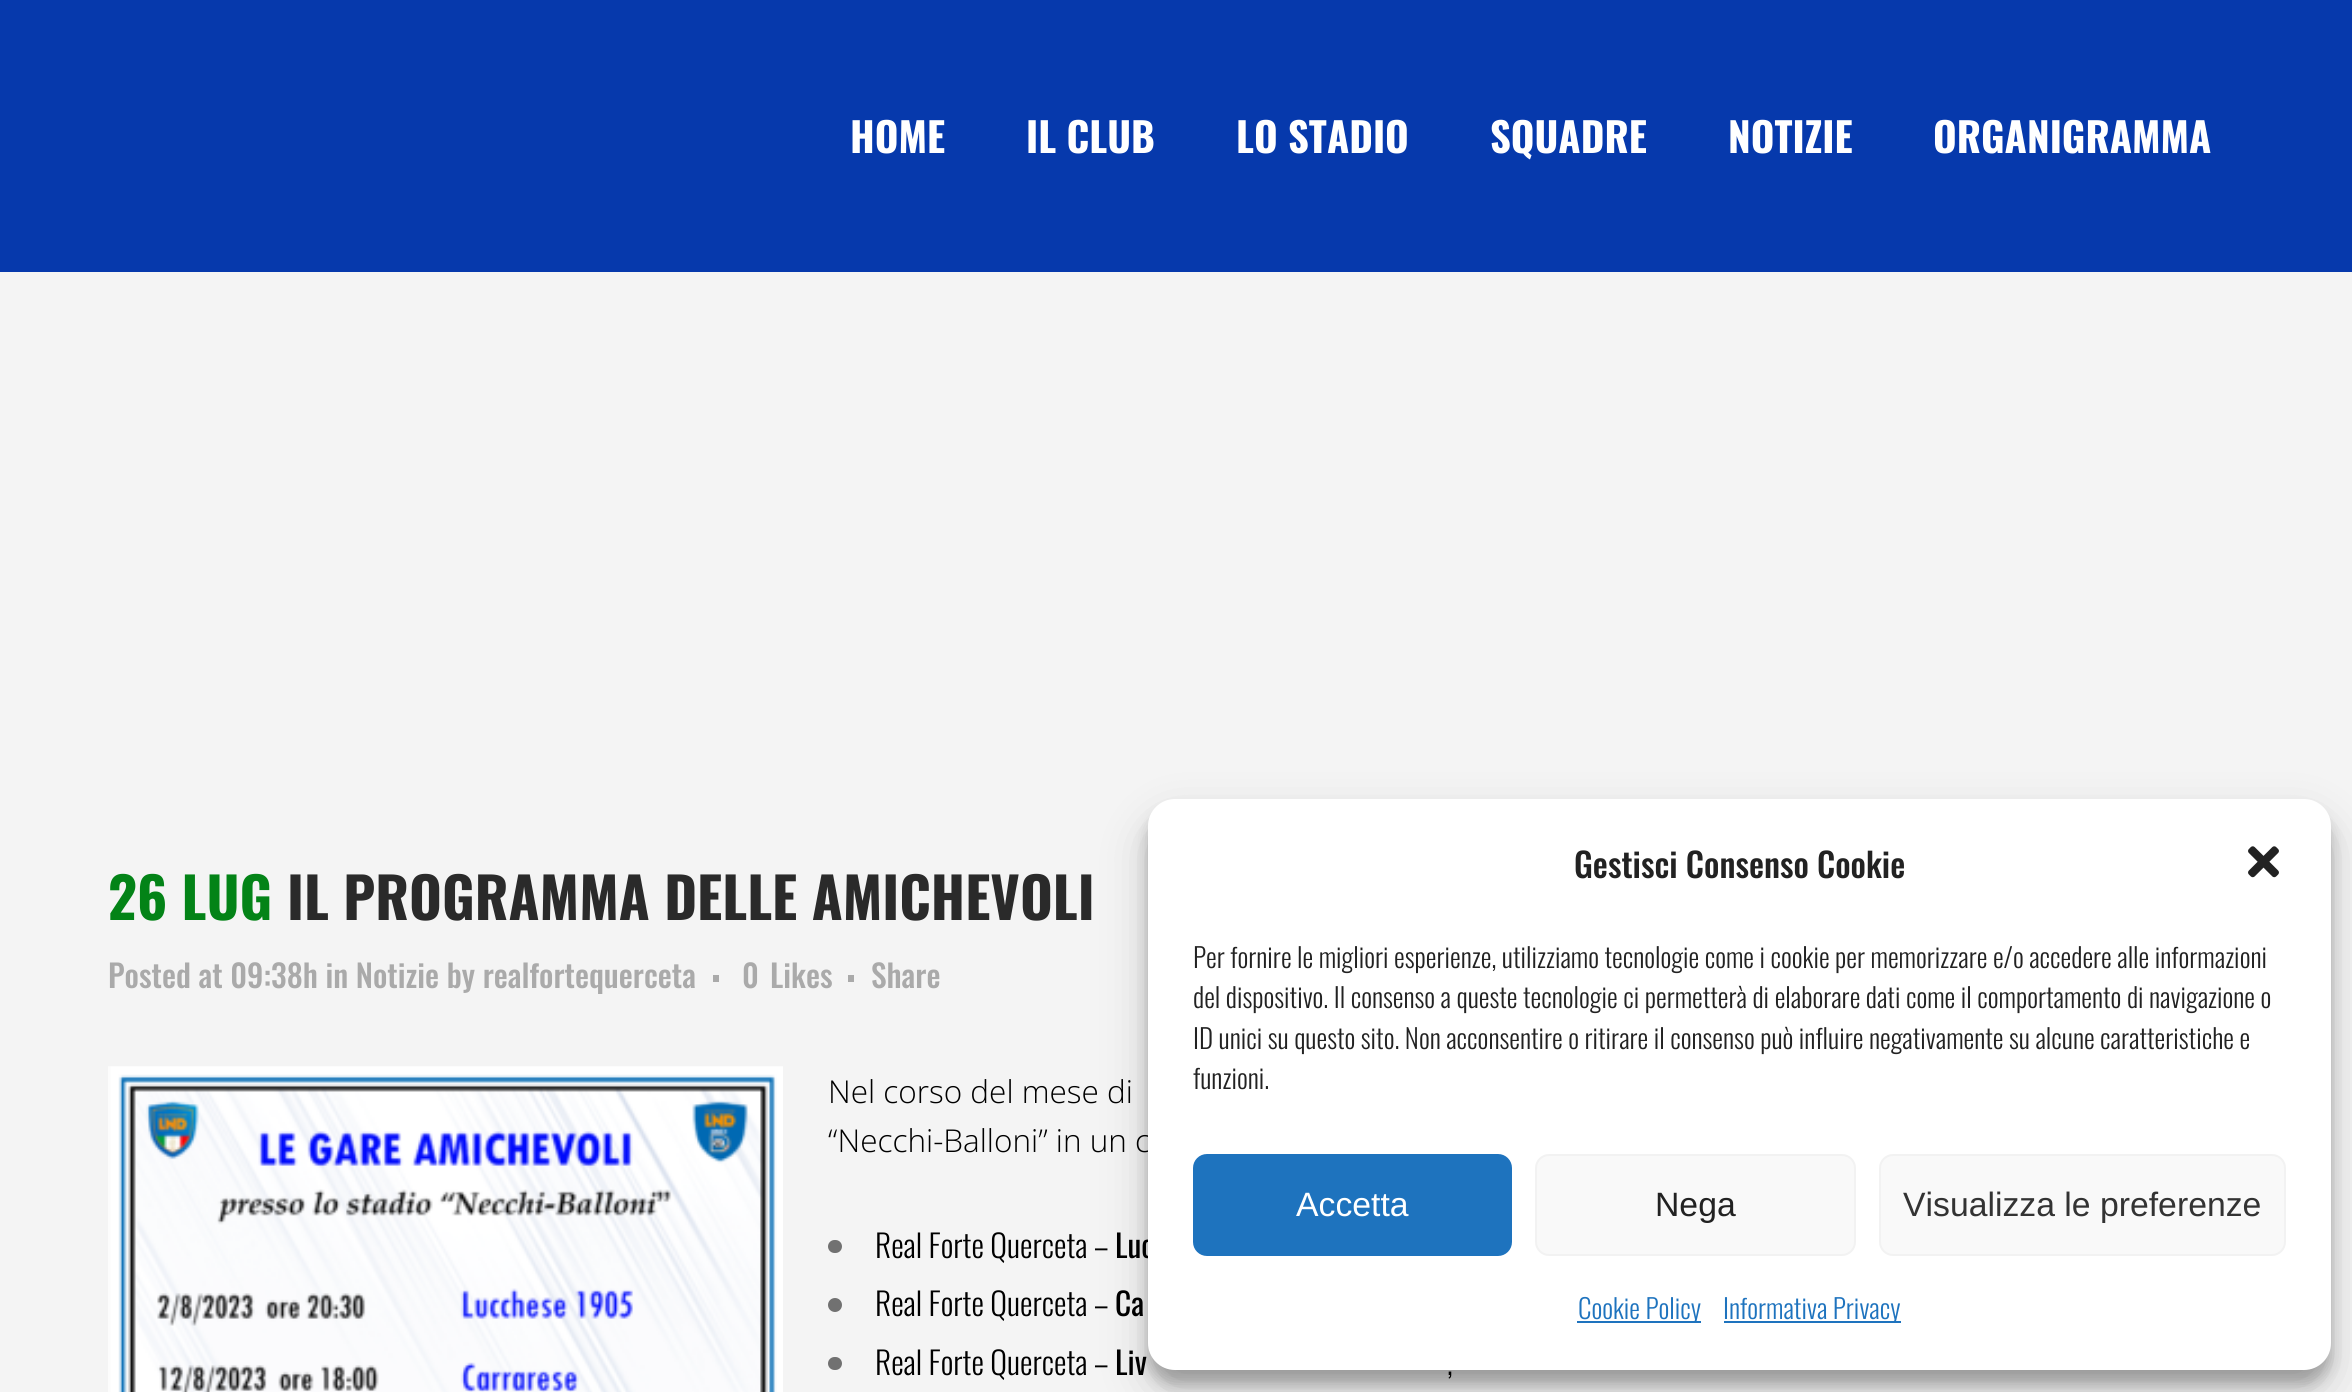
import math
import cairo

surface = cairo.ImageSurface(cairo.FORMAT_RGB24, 2352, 1392)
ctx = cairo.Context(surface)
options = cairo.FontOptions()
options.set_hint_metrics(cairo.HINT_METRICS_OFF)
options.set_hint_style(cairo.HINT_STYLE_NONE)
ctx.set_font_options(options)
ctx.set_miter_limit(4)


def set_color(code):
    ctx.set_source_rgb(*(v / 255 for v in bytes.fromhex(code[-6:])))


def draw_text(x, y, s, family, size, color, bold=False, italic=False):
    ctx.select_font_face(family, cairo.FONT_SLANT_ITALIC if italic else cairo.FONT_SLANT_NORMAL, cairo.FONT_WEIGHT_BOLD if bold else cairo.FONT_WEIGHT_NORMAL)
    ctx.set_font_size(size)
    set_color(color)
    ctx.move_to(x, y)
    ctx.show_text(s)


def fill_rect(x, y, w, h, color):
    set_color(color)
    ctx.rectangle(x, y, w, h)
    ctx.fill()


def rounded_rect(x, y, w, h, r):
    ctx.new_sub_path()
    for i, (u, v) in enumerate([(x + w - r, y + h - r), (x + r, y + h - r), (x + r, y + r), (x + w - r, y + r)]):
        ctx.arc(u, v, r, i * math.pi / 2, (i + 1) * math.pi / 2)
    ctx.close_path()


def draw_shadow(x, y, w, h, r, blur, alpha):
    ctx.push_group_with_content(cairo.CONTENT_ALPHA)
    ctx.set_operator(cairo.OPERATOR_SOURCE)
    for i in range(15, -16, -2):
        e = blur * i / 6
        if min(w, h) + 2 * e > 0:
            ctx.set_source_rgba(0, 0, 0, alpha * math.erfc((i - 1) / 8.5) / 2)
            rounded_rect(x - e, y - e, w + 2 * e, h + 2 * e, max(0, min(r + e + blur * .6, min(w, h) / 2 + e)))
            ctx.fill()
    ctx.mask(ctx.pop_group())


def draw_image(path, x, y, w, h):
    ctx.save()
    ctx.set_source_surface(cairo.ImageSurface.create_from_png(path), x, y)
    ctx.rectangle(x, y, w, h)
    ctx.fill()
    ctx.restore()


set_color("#f4f4f4")
ctx.paint()
fill_rect(0, 0, 2352, 272, "#0639ac")
draw_text(850, 153, "HOME", "Oswald", 40.5, "#ffffff", bold=True)
draw_text(1026, 153, "IL CLUB", "Oswald", 40.5, "#ffffff", bold=True)
draw_text(1236, 153, "LO STADIO", "Oswald", 40.5, "#ffffff", bold=True)
draw_text(1490, 153, "SQUADRE", "Oswald", 40.5, "#ffffff", bold=True)
draw_text(1728, 153, "NOTIZIE", "Oswald", 40.5, "#ffffff", bold=True)
draw_text(1933, 153, "ORGANIGRAMMA", "Oswald", 40.5, "#ffffff", bold=True)
draw_text(108, 920, "26 LUG", "Oswald", 56.25, "#038317", bold=True)
draw_text(287, 920, "IL PROGRAMMA DELLE AMICHEVOLI", "Oswald", 56.25, "#2a2a2a", bold=True)
draw_text(108, 988, "Posted at 09:38h in Notizie by realfortequerceta", "Oswald Medium", 31.5, "#aaaaaa")
fill_rect(713, 975, 6, 7, "#aaaaaa")
draw_text(742, 988, "0", "Oswald Medium", 31.5, "#aaaaaa")
draw_text(770, 988, "Likes", "Oswald Medium", 31.5, "#aaaaaa")
fill_rect(848, 975, 6, 7, "#aaaaaa")
draw_text(871, 988, "Share", "Oswald Medium", 31.5, "#aaaaaa")
draw_image("assets/img1.png", 108, 1066, 675, 326)
draw_text(828, 1103, "Nel corso del mese di", "Open Sans Light", 31.5, "#000000")
draw_text(828, 1152, "“Necchi-Balloni” in un c", "Open Sans Light", 31.5, "#000000")
set_color("#717171")
rounded_rect(828, 1240, 14, 13, 6.5)
ctx.fill()
draw_text(875, 1258, "Real Forte Querceta –", "Oswald Light", 31.5, "#000000")
draw_text(1115, 1258, "Luc", "Oswald", 31.5, "#000000")
set_color("#717171")
ctx.new_path()
ctx.arc(835, 1305, 7, 0, 2 * math.pi)
ctx.fill()
draw_text(875, 1316, "Real Forte Querceta –", "Oswald Light", 31.5, "#000000")
draw_text(1115, 1316, "Ca", "Oswald", 31.5, "#000000")
set_color("#717171")
rounded_rect(828, 1357, 14, 13, 6.5)
ctx.fill()
draw_text(875, 1375, "Real Forte Querceta –", "Oswald Light", 31.5, "#000000")
draw_text(1115, 1375, "Liv", "Oswald", 31.5, "#000000")
draw_text(1447, 1375, ",", "Oswald Light", 31.5, "#000000")
set_color("#000000")
draw_shadow(1148, 812, 1183, 572, 27, 7, 0.23)
draw_shadow(1148, 821, 1183, 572, 27, 22.5, 0.19)
set_color("#ffffff")
rounded_rect(1148, 799, 1183, 571, 27)
ctx.fill()
draw_text(1574, 878, "Gestisci Consenso Cookie", "Oswald Medium", 33.75, "#222222")
draw_image("assets/img2.png", 2248, 846, 31, 32)
draw_text(1193, 968, "Per fornire le migliori esperienze, utilizziamo tecnologie come i cookie per memorizzare e/o accedere alle informazioni", "Oswald Light", 27, "#222222")
draw_text(1193, 1008, "del dispositivo. Il consenso a queste tecnologie ci permetterà di elaborare dati come il comportamento di navigazione o", "Oswald Light", 27, "#222222")
draw_text(1193, 1049, "ID unici su questo sito. Non acconsentire o ritirare il consenso può influire negativamente su alcune caratteristiche e", "Oswald Light", 27, "#222222")
draw_text(1193, 1089, "funzioni.", "Oswald Light", 27, "#222222")
set_color("#1e73be")
rounded_rect(1194, 1155, 317, 100, 13)
ctx.fill_preserve()
ctx.stroke()
draw_text(1296, 1216, "Accetta", "Liberation Sans", 33.75, "#ffffff")
set_color("#f9f9f9")
rounded_rect(1536, 1155, 319, 100, 13)
ctx.fill_preserve()
set_color("#f2f2f2")
ctx.stroke()
draw_text(1655, 1216, "Nega", "Liberation Sans", 33.75, "#222222")
set_color("#f9f9f9")
rounded_rect(1880, 1155, 405, 100, 13)
ctx.fill_preserve()
set_color("#f2f2f2")
ctx.stroke()
draw_text(1903, 1216, "Visualizza le preferenze", "Liberation Sans", 33.75, "#333333")
fill_rect(1577, 1321, 124, 2, "#1e73be")
draw_text(1578, 1319, "Cookie Policy", "Oswald Light", 27, "#1e73be")
fill_rect(1724, 1321, 177, 2, "#1e73be")
draw_text(1723, 1319, "Informativa Privacy", "Oswald Light", 27, "#1e73be")
surface.write_to_png("output.png")
